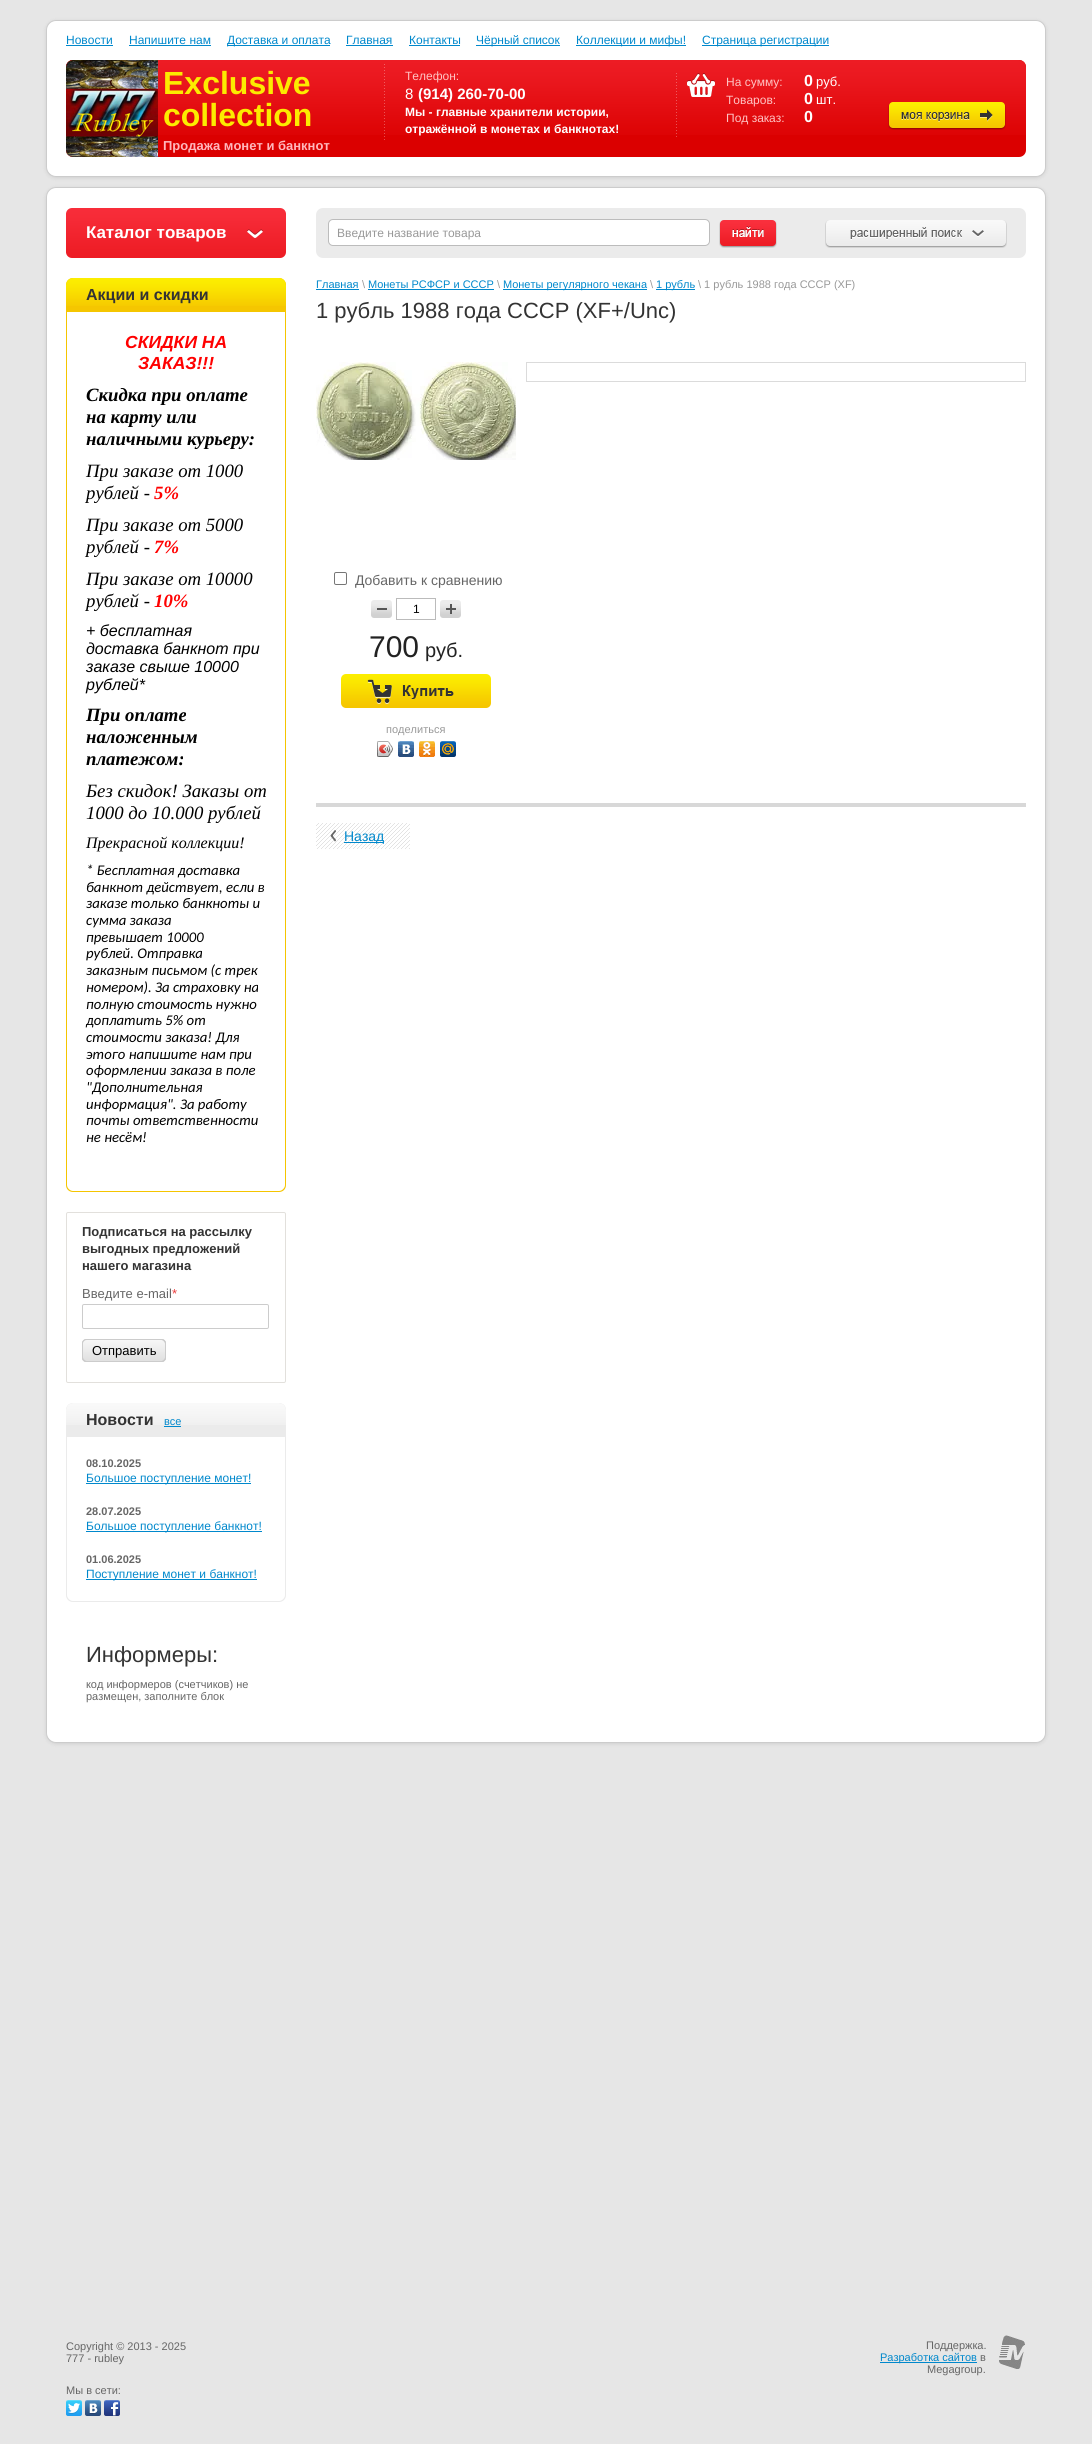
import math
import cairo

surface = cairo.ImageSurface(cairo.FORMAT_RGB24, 1092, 2444)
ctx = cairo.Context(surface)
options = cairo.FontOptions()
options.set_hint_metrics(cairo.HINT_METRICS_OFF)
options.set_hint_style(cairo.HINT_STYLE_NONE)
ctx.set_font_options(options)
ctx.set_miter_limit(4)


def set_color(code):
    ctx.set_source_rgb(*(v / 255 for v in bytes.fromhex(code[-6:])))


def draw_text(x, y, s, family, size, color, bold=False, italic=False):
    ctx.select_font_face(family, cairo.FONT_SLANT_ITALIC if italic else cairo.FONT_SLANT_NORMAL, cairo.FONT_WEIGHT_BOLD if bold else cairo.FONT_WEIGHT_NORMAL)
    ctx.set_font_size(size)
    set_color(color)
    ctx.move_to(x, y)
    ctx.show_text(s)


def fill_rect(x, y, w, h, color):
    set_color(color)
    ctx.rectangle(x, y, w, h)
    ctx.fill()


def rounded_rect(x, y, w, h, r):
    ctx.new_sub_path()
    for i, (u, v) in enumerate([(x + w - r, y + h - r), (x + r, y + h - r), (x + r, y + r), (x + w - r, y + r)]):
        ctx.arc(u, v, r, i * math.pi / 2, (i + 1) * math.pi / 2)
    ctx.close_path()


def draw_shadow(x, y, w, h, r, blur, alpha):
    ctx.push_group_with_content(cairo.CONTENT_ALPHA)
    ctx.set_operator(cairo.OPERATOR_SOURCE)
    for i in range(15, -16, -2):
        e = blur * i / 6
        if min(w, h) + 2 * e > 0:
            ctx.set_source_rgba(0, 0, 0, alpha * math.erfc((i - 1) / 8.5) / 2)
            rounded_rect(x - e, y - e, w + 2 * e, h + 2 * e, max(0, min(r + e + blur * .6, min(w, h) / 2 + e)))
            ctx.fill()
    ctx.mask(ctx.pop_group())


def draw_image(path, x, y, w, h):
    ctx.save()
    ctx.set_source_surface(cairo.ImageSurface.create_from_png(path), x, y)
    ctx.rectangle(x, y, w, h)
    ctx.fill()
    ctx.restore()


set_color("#e6e6e6")
ctx.paint()
set_color("#000000")
draw_shadow(46, 21, 1000, 157, 10, 2, 0.1)
set_color("#ffffff")
rounded_rect(46.5, 20.5, 999, 156, 9.5)
ctx.fill_preserve()
set_color("#cccccc")
ctx.set_line_width(1)
ctx.stroke()
draw_text(66, 44, "Новости", "Liberation Sans", 12, "#0088cc")
fill_rect(66, 45, 47, 1, "#0088cc")
draw_text(129, 44, "Напишите нам", "Liberation Sans", 12, "#0088cc")
fill_rect(129, 45, 82, 1, "#0088cc")
fill_rect(227, 45, 103, 1, "#0088cc")
draw_text(227, 44, "Доставка и оплата", "Liberation Sans", 12, "#0088cc")
draw_text(346, 44, "Главная", "Liberation Sans", 12, "#0088cc")
fill_rect(346, 45, 47, 1, "#0088cc")
draw_text(409, 44, "Контакты", "Liberation Sans", 12, "#0088cc")
fill_rect(409, 45, 51, 1, "#0088cc")
fill_rect(476, 45, 84, 1, "#0088cc")
draw_text(476, 44, "Чёрный список", "Liberation Sans", 12, "#0088cc")
fill_rect(576, 45, 110, 1, "#0088cc")
draw_text(576, 44, "Коллекции и мифы!", "Liberation Sans", 12, "#0088cc")
fill_rect(702, 45, 127, 1, "#0088cc")
draw_text(702, 44, "Страница регистрации", "Liberation Sans", 12, "#0088cc")
set_color("#db0000")
rounded_rect(66, 60, 960, 97, 7)
ctx.fill()
draw_image("assets/img1.png", 66, 60, 960, 75)
draw_image("assets/img2.png", 66, 60, 92, 97)
draw_text(163, 94, "Exclusive", "Liberation Sans", 32, "#fceb00", bold=True)
draw_text(163, 126, "collection", "Liberation Sans", 32, "#fceb00", bold=True)
draw_text(163, 150, "Продажа монет и банкнот", "Liberation Sans", 13, "#ffb7bc", bold=True)
draw_image("assets/img3.png", 384, 64, 1, 76)
draw_text(405, 80, "Телефон:", "Liberation Sans", 12, "#ffc3c3")
draw_text(405, 99, "8", "Liberation Sans", 15, "#ffffff")
draw_text(418, 99, "(914) 260-70-00", "Liberation Sans", 15, "#ffffff", bold=True)
draw_text(405, 116, "Мы - главные хранители истории,", "Liberation Sans", 12, "#ffffff", bold=True)
draw_text(405, 133, "отражённой в монетах и банкнотах!", "Liberation Sans", 12, "#ffffff", bold=True)
draw_image("assets/img4.png", 676, 73, 1, 64)
draw_image("assets/img5.png", 687, 73, 28, 24)
draw_text(726, 86, "На сумму:", "Liberation Sans", 12, "#ffc3c3")
draw_text(804, 86, "0", "Liberation Sans", 16, "#ffffff", bold=True)
draw_text(816, 86, "руб.", "Liberation Sans", 13, "#ffffff")
draw_text(726, 104, "Товаров:", "Liberation Sans", 12, "#ffc3c3")
draw_text(804, 104, "0", "Liberation Sans", 16, "#ffffff", bold=True)
draw_text(816, 104, "шт.", "Liberation Sans", 13, "#ffffff")
draw_text(726, 122, "Под заказ:", "Liberation Sans", 12, "#ffc3c3")
draw_text(804, 122, "0", "Liberation Sans", 16, "#ffffff", bold=True)
draw_image("assets/img6.png", 888, 102, 118, 28)
set_color("#000000")
draw_shadow(46, 188, 1000, 1556, 10, 2, 0.1)
set_color("#ffffff")
rounded_rect(46.5, 187.5, 999, 1555, 9.5)
ctx.fill_preserve()
set_color("#cccccc")
ctx.stroke()
draw_image("assets/img7.png", 66, 208, 220, 50)
draw_text(86, 238, "Каталог товаров", "Liberation Sans", 17, "#ffffff", bold=True)
set_color("#f5c600")
ctx.new_path()
ctx.move_to(73, 278)
ctx.line_to(279, 278)
ctx.curve_to(283, 278, 286, 281, 286, 285)
ctx.line_to(286, 312)
ctx.line_to(66, 312)
ctx.line_to(66, 285)
ctx.curve_to(66, 281, 69, 278, 73, 278)
ctx.close_path()
ctx.fill()
draw_image("assets/img8.png", 66, 278, 220, 28)
draw_text(86, 300, "Акции и скидки", "Liberation Sans", 16, "#333333", bold=True)
set_color("#f5c500")
ctx.set_fill_rule(cairo.FILL_RULE_EVEN_ODD)
ctx.new_path()
ctx.move_to(66, 312)
ctx.line_to(286, 312)
ctx.line_to(286, 1185)
ctx.curve_to(286, 1189, 283, 1192, 279, 1192)
ctx.line_to(73, 1192)
ctx.curve_to(69, 1192, 66, 1189, 66, 1185)
ctx.close_path()
ctx.move_to(67, 312)
ctx.line_to(285, 312)
ctx.line_to(285, 1185)
ctx.curve_to(285, 1188, 282, 1191, 279, 1191)
ctx.line_to(73, 1191)
ctx.curve_to(70, 1191, 67, 1188, 67, 1185)
ctx.close_path()
ctx.fill()
draw_text(125, 348, "СКИДКИ НА", "Liberation Sans", 17.5, "#ff0000", bold=True, italic=True)
draw_text(138, 369, "ЗАКАЗ!!!", "Liberation Sans", 17.5, "#ff0000", bold=True, italic=True)
draw_text(86, 401, "Скидка при оплате", "Liberation Serif", 18.75, "#000000", bold=True, italic=True)
draw_text(86, 423, "на карту или", "Liberation Serif", 18.75, "#000000", bold=True, italic=True)
draw_text(86, 445, "наличными курьеру:", "Liberation Serif", 18.75, "#000000", bold=True, italic=True)
draw_text(86, 477, "При заказе от 1000", "Liberation Serif", 18.75, "#000000", italic=True)
draw_text(86, 499, "рублей -", "Liberation Serif", 18.75, "#000000", italic=True)
draw_text(154, 499, "5%", "Liberation Serif", 18.75, "#ff0000", bold=True, italic=True)
draw_text(86, 531, "При заказе от 5000", "Liberation Serif", 18.75, "#000000", italic=True)
draw_text(86, 553, "рублей -", "Liberation Serif", 18.75, "#000000", italic=True)
draw_text(154, 553, "7%", "Liberation Serif", 18.75, "#ff0000", bold=True, italic=True)
draw_text(86, 585, "При заказе от 10000", "Liberation Serif", 18.75, "#000000", italic=True)
draw_text(86, 607, "рублей -", "Liberation Serif", 18.75, "#000000", italic=True)
draw_text(154, 607, "10%", "Liberation Serif", 18.75, "#ff0000", bold=True, italic=True)
draw_text(86, 636, "+ бесплатная", "Liberation Sans", 16, "#000000", italic=True)
draw_text(86, 654, "доставка банкнот при", "Liberation Sans", 16, "#000000", italic=True)
draw_text(86, 672, "заказе свыше 10000", "Liberation Sans", 16, "#000000", italic=True)
draw_text(86, 690, "рублей*", "Liberation Sans", 16, "#000000", italic=True)
draw_text(86, 721, "При оплате", "Liberation Serif", 18.75, "#000000", bold=True, italic=True)
draw_text(86, 743, "наложенным", "Liberation Serif", 18.75, "#000000", bold=True, italic=True)
draw_text(86, 765, "платежом:", "Liberation Serif", 18.75, "#000000", bold=True, italic=True)
draw_text(86, 797, "Без скидок! Заказы от", "Liberation Serif", 18.75, "#000000", italic=True)
draw_text(86, 819, "1000 до 10.000 рублей", "Liberation Serif", 18.75, "#000000", italic=True)
draw_text(86, 848, "Прекрасной коллекции!", "Liberation Serif", 16, "#000000", italic=True)
draw_text(86, 875, "* Бесплатная доставка", "Carlito", 14.75, "#000000", italic=True)
draw_text(86, 892, "банкнот действует, если в", "Carlito", 14.75, "#000000", italic=True)
draw_text(86, 908, "заказе только банкноты и", "Carlito", 14.75, "#000000", italic=True)
draw_text(86, 925, "сумма заказа", "Carlito", 14.75, "#000000", italic=True)
draw_text(86, 942, "превышает 10000", "Carlito", 14.75, "#000000", italic=True)
draw_text(86, 958, "рублей. Отправка", "Carlito", 14.75, "#000000", italic=True)
draw_text(86, 975, "заказным письмом (с трек", "Carlito", 14.75, "#000000", italic=True)
draw_text(86, 992, "номером). За страховку на", "Carlito", 14.75, "#000000", italic=True)
draw_text(86, 1009, "полную стоимость нужно", "Carlito", 14.75, "#000000", italic=True)
draw_text(86, 1025, "доплатить 5% от", "Carlito", 14.75, "#000000", italic=True)
draw_text(86, 1042, "стоимости заказа! Для", "Carlito", 14.75, "#000000", italic=True)
draw_text(86, 1059, "этого напишите нам при", "Carlito", 14.75, "#000000", italic=True)
draw_text(86, 1075, "оформлении заказа в поле", "Carlito", 14.75, "#000000", italic=True)
draw_text(86, 1092, "\"Дополнительная", "Carlito", 14.75, "#000000", italic=True)
draw_text(86, 1109, "информация\". За работу", "Carlito", 14.75, "#000000", italic=True)
draw_text(86, 1125, "почты ответственности", "Carlito", 14.75, "#000000", italic=True)
draw_text(86, 1142, "не несём!", "Carlito", 14.75, "#000000", italic=True)
rounded_rect(66.5, 1212.5, 219, 170, 1.5)
set_color("#e2e0dc")
ctx.stroke()
draw_text(82, 1236, "Подписаться на рассылку", "Liberation Sans", 13, "#333333", bold=True)
draw_text(82, 1253, "выгодных предложений", "Liberation Sans", 13, "#333333", bold=True)
draw_text(82, 1270, "нашего магазина", "Liberation Sans", 13, "#333333", bold=True)
draw_text(82, 1298, "Введите e-mail", "Liberation Sans", 13, "#666666")
draw_text(172, 1298, "*", "Liberation Sans", 13, "#eb3c3c")
rounded_rect(82.5, 1304.5, 186, 24, 1.5)
set_color("#cccccc")
ctx.stroke()
gradient = cairo.LinearGradient(124, 1339, 124, 1362)
gradient.add_color_stop_rgba(0, 0.973, 0.973, 0.973, 1)
gradient.add_color_stop_rgba(1, 0.875, 0.875, 0.875, 1)
ctx.set_source(gradient)
rounded_rect(82, 1339, 84, 23, 4)
ctx.fill()
set_color("#cccccc")
ctx.set_fill_rule(cairo.FILL_RULE_WINDING)
ctx.new_path()
ctx.move_to(84, 1340)
ctx.curve_to(83, 1340, 82, 1342, 82, 1343)
ctx.line_to(82, 1358)
ctx.curve_to(82, 1360, 84, 1362, 86, 1362)
ctx.line_to(162, 1362)
ctx.curve_to(163, 1362, 165, 1361, 165, 1360)
ctx.line_to(163, 1361)
ctx.line_to(87, 1361)
ctx.curve_to(85, 1361, 83, 1359, 83, 1357)
ctx.line_to(83, 1342)
ctx.close_path()
ctx.fill()
ctx.new_path()
ctx.move_to(85, 1340)
ctx.line_to(161, 1340)
ctx.curve_to(163, 1340, 165, 1342, 165, 1344)
ctx.line_to(165, 1359)
ctx.line_to(164, 1361)
ctx.curve_to(165, 1361, 166, 1359, 166, 1358)
ctx.line_to(166, 1343)
ctx.curve_to(166, 1341, 164, 1339, 162, 1339)
ctx.line_to(86, 1339)
ctx.curve_to(85, 1339, 83, 1340, 83, 1341)
ctx.close_path()
ctx.fill()
ctx.new_path()
ctx.move_to(83, 1360)
ctx.curve_to(83, 1361, 85, 1362, 86, 1362)
ctx.line_to(162, 1362)
ctx.curve_to(164, 1362, 166, 1360, 166, 1358)
ctx.line_to(166, 1343)
ctx.curve_to(166, 1342, 165, 1340, 164, 1340)
ctx.line_to(165, 1342)
ctx.line_to(165, 1357)
ctx.curve_to(165, 1359, 163, 1361, 161, 1361)
ctx.line_to(85, 1361)
ctx.close_path()
ctx.fill()
ctx.new_path()
ctx.move_to(87, 1340)
ctx.line_to(163, 1340)
ctx.line_to(165, 1341)
ctx.curve_to(165, 1340, 163, 1339, 162, 1339)
ctx.line_to(86, 1339)
ctx.curve_to(84, 1339, 82, 1341, 82, 1343)
ctx.line_to(82, 1358)
ctx.curve_to(82, 1359, 83, 1361, 84, 1361)
ctx.curve_to(82, 1359, 83, 1354, 83, 1352)
ctx.curve_to(83, 1348, 81, 1340, 87, 1340)
ctx.close_path()
ctx.fill()
draw_text(92, 1355, "Отправить", "Liberation Sans", 13, "#000000")
set_color("#ebebeb")
ctx.new_path()
ctx.move_to(73, 1403)
ctx.line_to(279, 1403)
ctx.curve_to(283, 1403, 286, 1406, 286, 1410)
ctx.line_to(286, 1437)
ctx.line_to(66, 1437)
ctx.line_to(66, 1410)
ctx.curve_to(66, 1406, 69, 1403, 73, 1403)
ctx.close_path()
ctx.fill()
draw_image("assets/img9.png", 66, 1403, 220, 22)
draw_text(86, 1425, "Новости", "Liberation Sans", 16, "#333333", bold=True)
draw_text(164, 1425, "все", "Liberation Sans", 11, "#0088cc")
fill_rect(164, 1426, 17, 1, "#0088cc")
set_color("#ebebeb")
ctx.set_fill_rule(cairo.FILL_RULE_EVEN_ODD)
ctx.new_path()
ctx.move_to(66, 1437)
ctx.line_to(286, 1437)
ctx.line_to(286, 1595)
ctx.curve_to(286, 1599, 283, 1602, 279, 1602)
ctx.line_to(73, 1602)
ctx.curve_to(69, 1602, 66, 1599, 66, 1595)
ctx.close_path()
ctx.move_to(67, 1437)
ctx.line_to(285, 1437)
ctx.line_to(285, 1595)
ctx.curve_to(285, 1598, 282, 1601, 279, 1601)
ctx.line_to(73, 1601)
ctx.curve_to(70, 1601, 67, 1598, 67, 1595)
ctx.close_path()
ctx.fill()
draw_text(86, 1467, "08.10.2025", "Liberation Sans", 11, "#666666", bold=True)
fill_rect(86, 1483, 165, 1, "#0088cc")
draw_text(86, 1482, "Большое поступление монет!", "Liberation Sans", 12, "#0088cc")
draw_text(86, 1515, "28.07.2025", "Liberation Sans", 11, "#666666", bold=True)
fill_rect(86, 1531, 176, 1, "#0088cc")
draw_text(86, 1530, "Большое поступление банкнот!", "Liberation Sans", 12, "#0088cc")
draw_text(86, 1563, "01.06.2025", "Liberation Sans", 11, "#666666", bold=True)
fill_rect(86, 1579, 171, 1, "#0088cc")
draw_text(86, 1578, "Поступление монет и банкнот!", "Liberation Sans", 12, "#0088cc")
draw_text(86, 1662, "Информеры:", "Liberation Sans", 22, "#333333")
draw_text(86, 1688, "код информеров (счетчиков) не", "Liberation Sans", 11, "#666666")
draw_text(86, 1700, "размещен, заполните блок", "Liberation Sans", 11, "#666666")
set_color("#ebebeb")
rounded_rect(316, 208, 710, 50, 7)
ctx.fill()
set_color("#ffffff")
rounded_rect(328.5, 219.5, 381, 26, 4.5)
ctx.fill_preserve()
set_color("#bcbcbc")
ctx.stroke()
draw_text(337, 237, "Введите название товара", "Liberation Sans", 12, "#999999")
draw_image("assets/img10.png", 719, 220, 58, 28)
draw_image("assets/img11.png", 825, 220, 182, 28)
draw_text(316, 288, "Главная", "Liberation Sans", 11, "#0088cc")
fill_rect(316, 289, 43, 1, "#0088cc")
draw_text(362, 288, "\\", "Liberation Sans", 11, "#999999")
draw_text(368, 288, "Монеты РСФСР и СССР", "Liberation Sans", 11, "#0088cc")
fill_rect(368, 289, 126, 1, "#0088cc")
draw_text(497, 288, "\\", "Liberation Sans", 11, "#999999")
fill_rect(503, 289, 144, 1, "#0088cc")
draw_text(503, 288, "Монеты регулярного чекана", "Liberation Sans", 11, "#0088cc")
draw_text(650, 288, "\\", "Liberation Sans", 11, "#999999")
fill_rect(656, 289, 39, 1, "#0088cc")
draw_text(656, 288, "1 рубль", "Liberation Sans", 11, "#0088cc")
draw_text(698, 288, "\\ 1 рубль 1988 года СССР (XF)", "Liberation Sans", 11, "#999999")
draw_text(316, 318, "1 рубль 1988 года СССР (XF+/Unc)", "Liberation Sans", 22, "#333333")
ctx.rectangle(526.5, 362.5, 499, 19)
set_color("#dbdbdb")
ctx.stroke()
draw_image("assets/img12.png", 316, 362, 200, 98)
rounded_rect(334.5, 572.5, 12, 12, 1.5)
set_color("#767676")
ctx.stroke()
draw_text(355, 585, "Добавить к сравнению", "Liberation Sans", 14, "#666666")
draw_image("assets/img13.png", 371, 600, 21, 18)
ctx.rectangle(396.5, 598.5, 39, 21)
set_color("#bbbbbb")
ctx.stroke()
draw_text(413, 613, "1", "Liberation Sans", 12, "#000000")
draw_image("assets/img14.png", 440, 600, 21, 18)
draw_text(369, 657, "700", "Liberation Sans", 30, "#222222")
draw_text(425, 657, "руб.", "Liberation Sans", 20, "#222222")
draw_image("assets/img15.png", 341, 674, 150, 34)
draw_text(386, 733, "поделиться", "Liberation Sans", 11, "#999999")
draw_image("assets/img16.png", 377, 741, 16, 16)
draw_image("assets/img17.png", 377, 741, 16, 16)
draw_image("assets/img18.png", 398, 741, 16, 16)
draw_image("assets/img19.png", 419, 741, 16, 16)
draw_image("assets/img20.png", 440, 741, 16, 16)
fill_rect(316, 803, 710, 4, "#d8d8d8")
draw_image("assets/img21.png", 316, 823, 94, 26)
draw_image("assets/img22.png", 330, 830, 6, 12)
fill_rect(344, 842, 40, 1, "#0088cc")
draw_text(344, 841, "Назад", "Liberation Sans", 14, "#0088cc")
draw_text(66, 2350, "Copyright © 2013 - 2025", "Liberation Sans", 11, "#666666")
draw_text(66, 2362, "777 - rubley", "Liberation Sans", 11, "#666666")
draw_text(66, 2394, "Мы в сети:", "Liberation Sans", 11, "#666666")
draw_image("assets/img23.png", 66, 2400, 16, 16)
draw_image("assets/img24.png", 85, 2400, 16, 16)
draw_image("assets/img25.png", 104, 2400, 16, 16)
draw_image("assets/img26.png", 999, 2335, 26, 34)
draw_text(926, 2349, "Поддержка.", "Liberation Sans", 11, "#666666")
fill_rect(880, 2362, 97, 1, "#0088cc")
draw_text(880, 2361, "Разработка сайтов", "Liberation Sans", 11, "#0088cc")
draw_text(980, 2361, "в", "Liberation Sans", 11, "#666666")
draw_text(927, 2373, "Megagroup.", "Liberation Sans", 11, "#666666")
surface.write_to_png("output.png")
